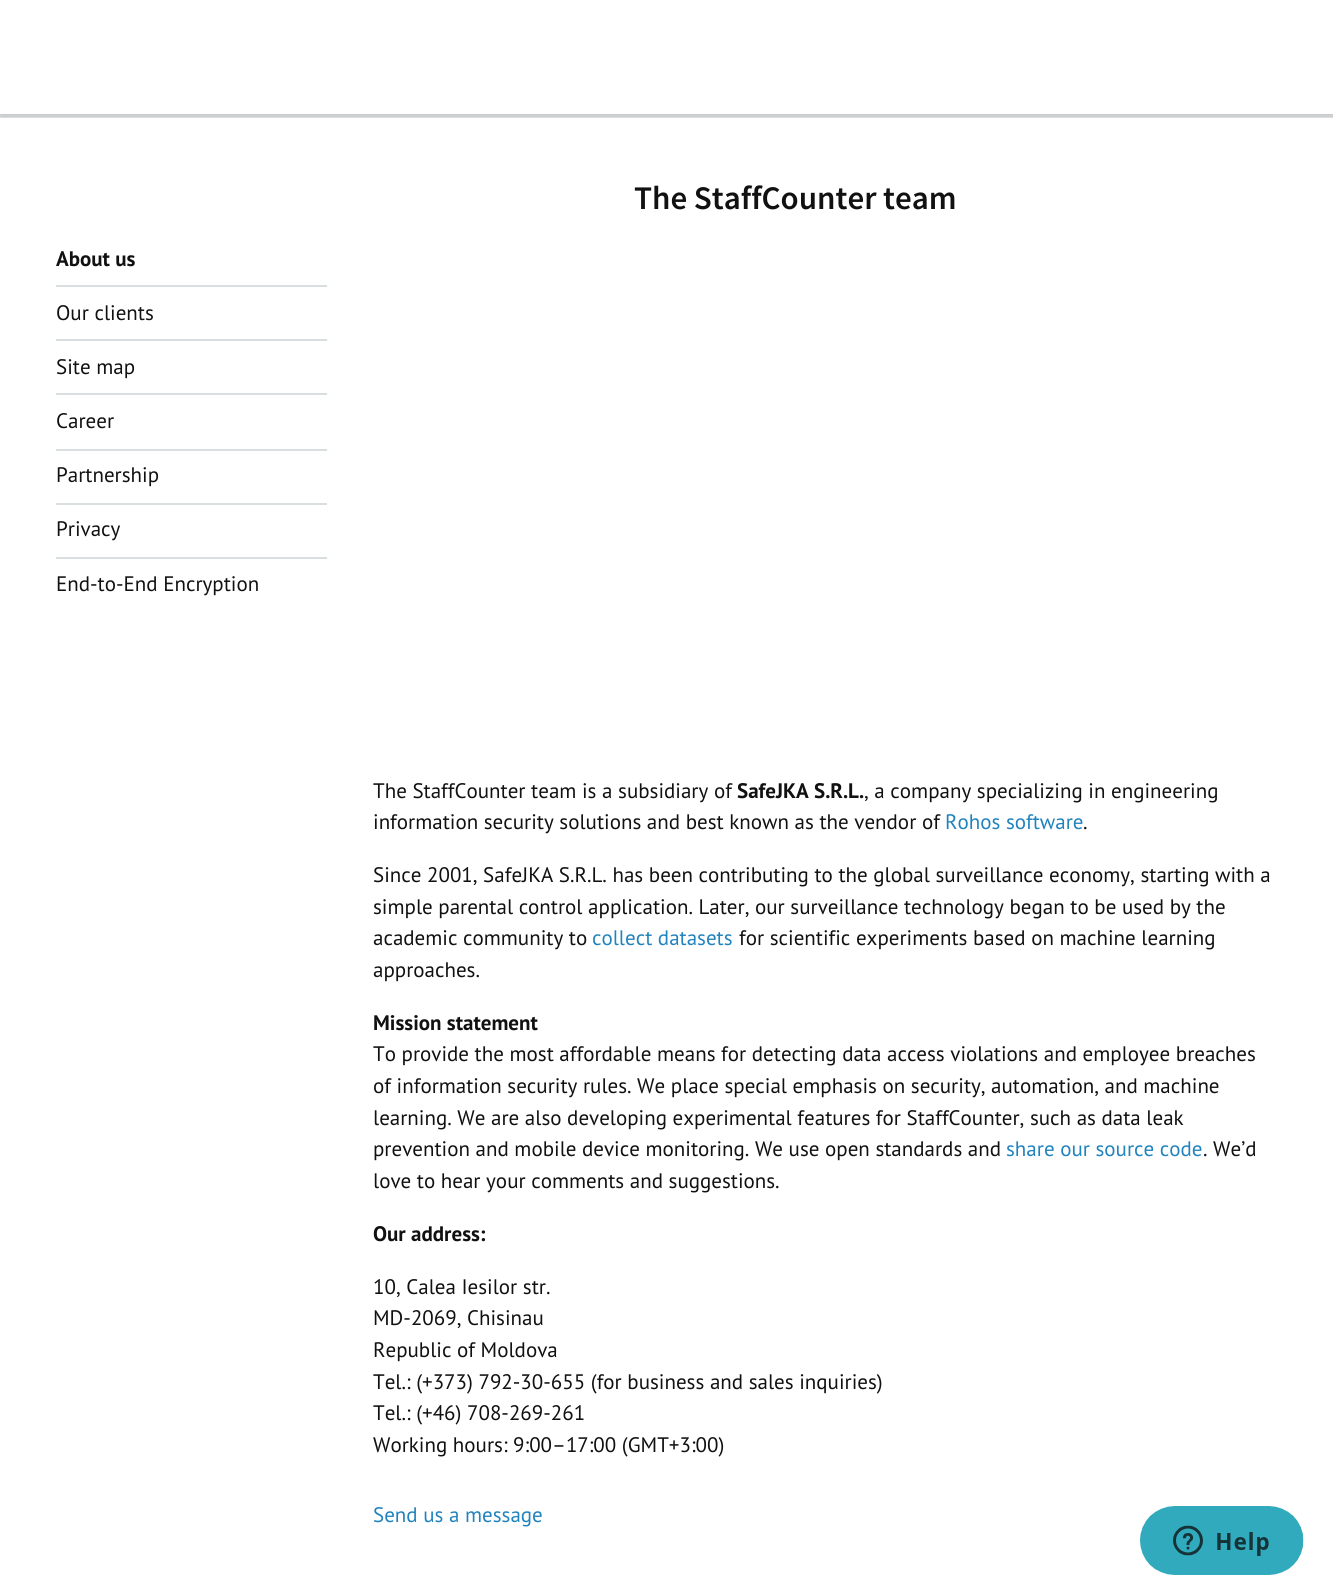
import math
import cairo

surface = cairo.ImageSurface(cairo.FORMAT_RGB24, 1333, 1595)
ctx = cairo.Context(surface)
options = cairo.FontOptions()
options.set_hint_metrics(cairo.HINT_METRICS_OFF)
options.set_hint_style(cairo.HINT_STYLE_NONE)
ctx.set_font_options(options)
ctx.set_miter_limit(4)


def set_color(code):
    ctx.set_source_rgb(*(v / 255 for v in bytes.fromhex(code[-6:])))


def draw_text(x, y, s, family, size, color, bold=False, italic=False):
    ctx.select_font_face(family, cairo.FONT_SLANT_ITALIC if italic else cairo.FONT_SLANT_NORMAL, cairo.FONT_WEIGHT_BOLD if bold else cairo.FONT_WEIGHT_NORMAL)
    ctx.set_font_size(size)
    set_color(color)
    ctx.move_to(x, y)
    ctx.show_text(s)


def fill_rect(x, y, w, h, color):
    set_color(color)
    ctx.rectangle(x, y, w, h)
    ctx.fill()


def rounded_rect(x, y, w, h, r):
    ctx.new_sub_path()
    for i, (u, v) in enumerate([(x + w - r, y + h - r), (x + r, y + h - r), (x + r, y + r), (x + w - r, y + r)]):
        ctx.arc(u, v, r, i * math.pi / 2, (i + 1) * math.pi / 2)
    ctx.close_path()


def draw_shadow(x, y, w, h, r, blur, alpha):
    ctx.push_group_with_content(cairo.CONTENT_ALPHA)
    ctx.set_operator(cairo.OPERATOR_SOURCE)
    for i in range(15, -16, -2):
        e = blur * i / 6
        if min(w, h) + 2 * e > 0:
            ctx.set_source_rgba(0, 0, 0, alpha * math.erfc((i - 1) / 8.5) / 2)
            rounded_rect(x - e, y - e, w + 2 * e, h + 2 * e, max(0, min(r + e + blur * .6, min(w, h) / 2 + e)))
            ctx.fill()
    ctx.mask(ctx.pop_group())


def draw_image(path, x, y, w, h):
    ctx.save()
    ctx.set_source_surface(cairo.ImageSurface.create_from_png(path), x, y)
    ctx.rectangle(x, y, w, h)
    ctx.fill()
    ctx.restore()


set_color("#ffffff")
ctx.paint()
fill_rect(0, 114, 1333, 2, "#f4f5f6")
fill_rect(0, 116, 1333, 2, "#d9dee1")
ctx.save()
ctx.rectangle(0, 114, 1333, 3)
ctx.clip()
set_color("#000000")
draw_shadow(0, 2, 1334, 114, 0, 1, 0.2)
ctx.restore()
draw_text(56, 266, "About us", "PT Sans", 21, "#111111", bold=True)
fill_rect(56, 285, 271, 2, "#d9dee1")
draw_text(56, 320, "Our clients", "PT Sans", 21, "#111111")
fill_rect(56, 339, 271, 2, "#d9dee1")
draw_text(56, 374, "Site map", "PT Sans", 21, "#111111")
fill_rect(56, 393, 271, 2, "#d9dee1")
draw_text(56, 428, "Career", "PT Sans", 21, "#111111")
fill_rect(56, 449, 271, 2, "#d9dee1")
draw_text(56, 482, "Partnership", "PT Sans", 21, "#111111")
fill_rect(56, 503, 271, 2, "#d9dee1")
draw_text(56, 536, "Privacy", "PT Sans", 21, "#111111")
fill_rect(56, 557, 271, 2, "#d9dee1")
draw_text(56, 591, "End-to-End Encryption", "PT Sans", 21, "#111111")
draw_text(634, 209, "The StaffCounter team", "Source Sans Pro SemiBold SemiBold", 33, "#111111")
draw_text(373, 798, "The StaffCounter team is a subsidiary of", "PT Sans", 21, "#111111")
draw_text(737, 798, "SafeJKA S.R.L.", "PT Sans", 21, "#111111", bold=True)
draw_text(864, 798, ", a company specializing in engineering", "PT Sans", 21, "#111111")
draw_text(373, 829, "information security solutions and best known as the vendor of", "PT Sans", 21, "#111111")
draw_text(945, 829, "Rohos software", "PT Sans", 21, "#2183bd")
draw_text(1083, 829, ".", "PT Sans", 21, "#111111")
draw_text(373, 882, "Since 2001, SafeJKA S.R.L. has been contributing to the global surveillance economy, starting with a", "PT Sans", 21, "#111111")
draw_text(373, 914, "simple parental control application. Later, our surveillance technology began to be used by the", "PT Sans", 21, "#111111")
draw_text(373, 945, "academic community to", "PT Sans", 21, "#111111")
draw_text(592, 945, "collect datasets", "PT Sans", 21, "#2183bd")
draw_text(739, 945, "for scientific experiments based on machine learning", "PT Sans", 21, "#111111")
draw_text(373, 977, "approaches.", "PT Sans", 21, "#111111")
draw_text(373, 1030, "Mission statement", "PT Sans", 21, "#111111", bold=True)
draw_text(373, 1061, "To provide the most affordable means for detecting data access violations and employee breaches", "PT Sans", 21, "#111111")
draw_text(373, 1093, "of information security rules. We place special emphasis on security, automation, and machine", "PT Sans", 21, "#111111")
draw_text(373, 1125, "learning. We are also developing experimental features for StaffCounter, such as data leak", "PT Sans", 21, "#111111")
draw_text(373, 1156, "prevention and mobile device monitoring. We use open standards and", "PT Sans", 21, "#111111")
draw_text(1006, 1156, "share our source code", "PT Sans", 21, "#2183bd")
draw_text(1203, 1156, ". We’d", "PT Sans", 21, "#111111")
draw_text(373, 1188, "love to hear your comments and suggestions.", "PT Sans", 21, "#111111")
draw_text(373, 1241, "Our address:", "PT Sans", 21, "#111111", bold=True)
draw_text(373, 1294, "10, Calea Iesilor str.", "PT Sans", 21, "#111111")
draw_text(373, 1325, "MD-2069, Chisinau", "PT Sans", 21, "#111111")
draw_text(373, 1357, "Republic of Moldova", "PT Sans", 21, "#111111")
draw_text(373, 1389, "Tel.: (+373) 792-30-655 (for business and sales inquiries)", "PT Sans", 21, "#111111")
draw_text(373, 1420, "Tel.: (+46) 708-269-261", "PT Sans", 21, "#111111")
draw_text(373, 1452, "Working hours: 9:00–17:00 (GMT+3:00)", "PT Sans", 21, "#111111")
draw_text(373, 1522, "Send us a message", "PT Sans", 21, "#2183bd")
draw_image("assets/img1.png", 1140, 1506, 164, 69)
surface.write_to_png("output.png")
